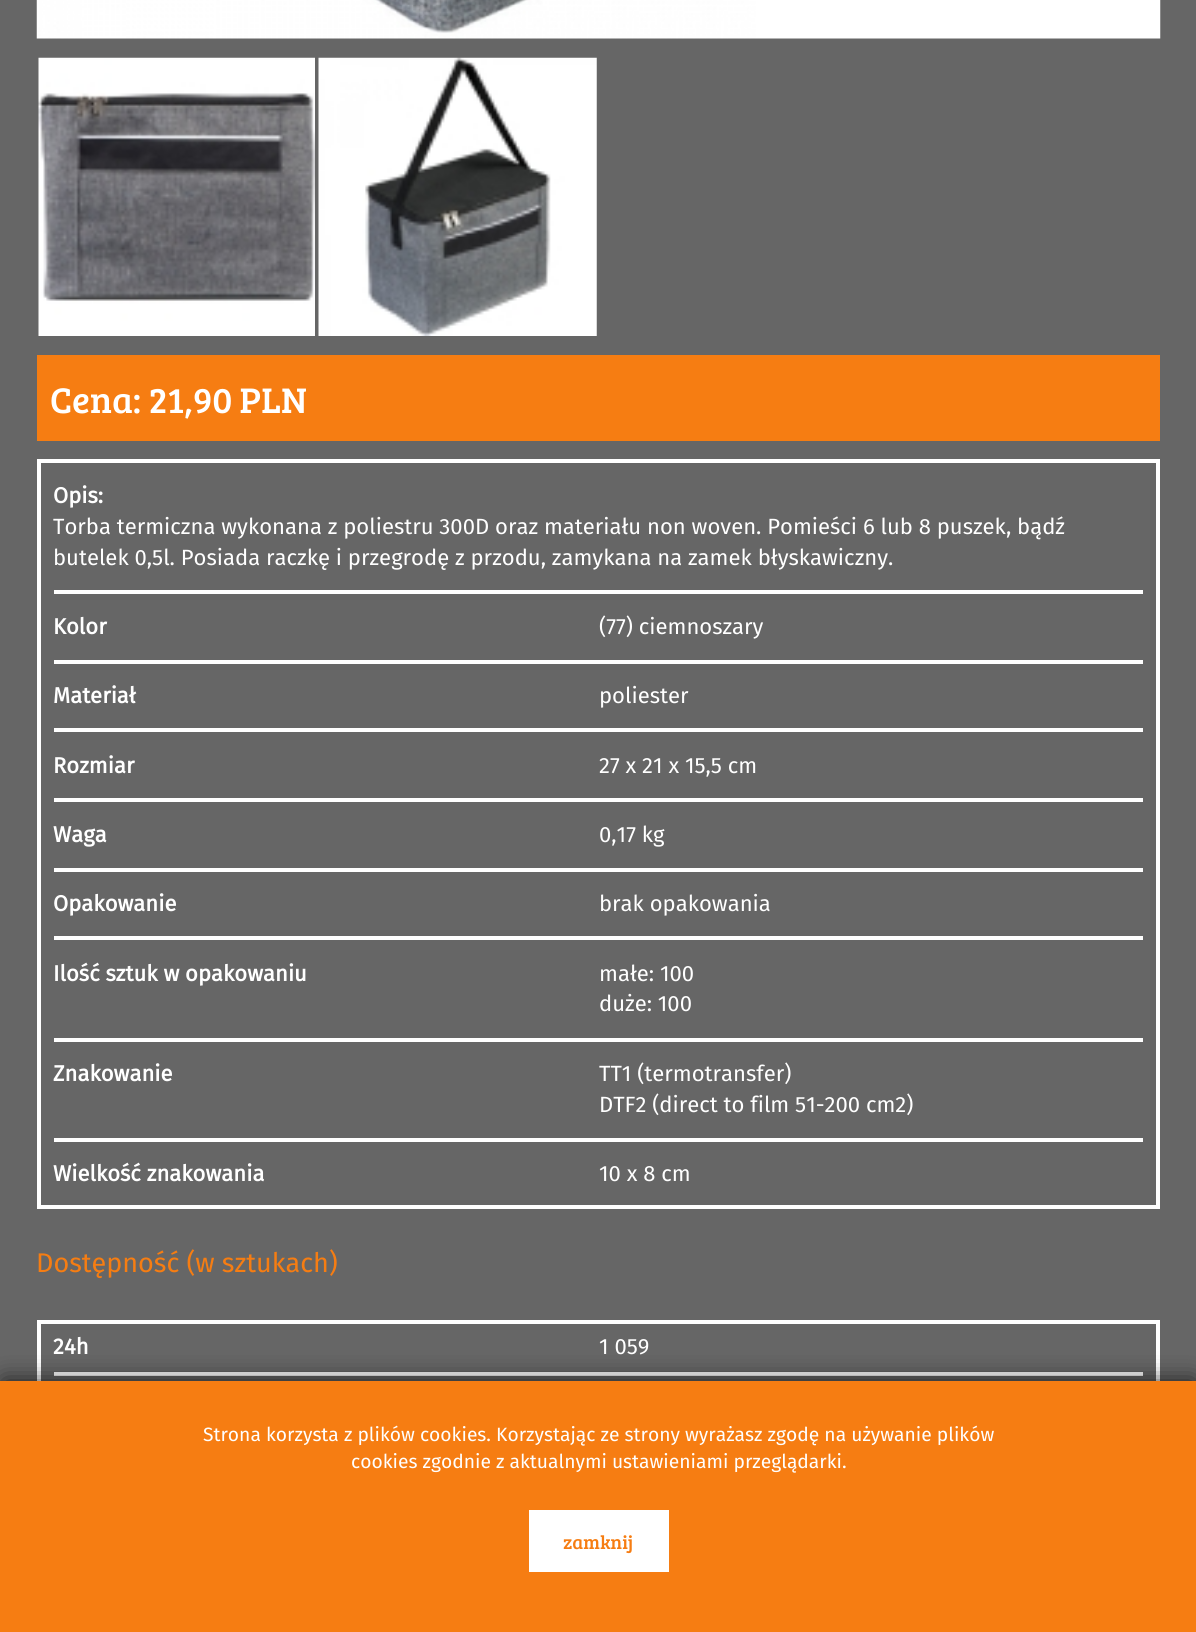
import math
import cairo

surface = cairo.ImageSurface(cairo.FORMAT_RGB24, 1196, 1632)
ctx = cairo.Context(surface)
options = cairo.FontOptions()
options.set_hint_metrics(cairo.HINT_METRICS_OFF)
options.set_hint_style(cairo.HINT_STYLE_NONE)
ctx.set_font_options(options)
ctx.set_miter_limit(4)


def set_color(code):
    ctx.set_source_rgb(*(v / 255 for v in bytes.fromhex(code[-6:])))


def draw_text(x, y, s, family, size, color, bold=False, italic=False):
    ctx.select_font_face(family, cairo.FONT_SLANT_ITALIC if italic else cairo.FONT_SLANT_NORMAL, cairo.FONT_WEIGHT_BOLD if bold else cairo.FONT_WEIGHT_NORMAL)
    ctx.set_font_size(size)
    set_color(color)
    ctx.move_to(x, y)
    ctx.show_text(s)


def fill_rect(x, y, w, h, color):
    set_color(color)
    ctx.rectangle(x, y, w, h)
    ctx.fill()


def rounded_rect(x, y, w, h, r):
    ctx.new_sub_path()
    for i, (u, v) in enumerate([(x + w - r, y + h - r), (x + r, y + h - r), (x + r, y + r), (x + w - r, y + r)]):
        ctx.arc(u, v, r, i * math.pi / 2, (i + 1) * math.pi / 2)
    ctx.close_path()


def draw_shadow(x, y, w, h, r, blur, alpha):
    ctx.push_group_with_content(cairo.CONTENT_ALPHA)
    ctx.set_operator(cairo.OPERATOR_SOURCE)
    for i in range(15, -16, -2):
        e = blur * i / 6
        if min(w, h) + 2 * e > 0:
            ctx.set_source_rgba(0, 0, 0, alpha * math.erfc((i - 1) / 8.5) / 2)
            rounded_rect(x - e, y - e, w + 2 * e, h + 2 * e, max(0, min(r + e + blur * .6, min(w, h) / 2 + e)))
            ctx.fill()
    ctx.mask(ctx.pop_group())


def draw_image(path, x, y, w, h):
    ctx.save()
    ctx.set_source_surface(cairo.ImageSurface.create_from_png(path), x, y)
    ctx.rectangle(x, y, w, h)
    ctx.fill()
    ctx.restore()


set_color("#666666")
ctx.paint()
draw_image("assets/img1.png", 36, 0, 1125, 39)
draw_image("assets/img2.png", 38, 57, 277, 279)
draw_image("assets/img3.png", 318, 57, 279, 279)
fill_rect(37, 355, 1123, 86, "#f67d12")
draw_text(50, 413, "Cena: 21,90 PLN", "Bree Serif", 36.75, "#ffffff")
ctx.rectangle(39, 461, 1119, 746)
ctx.set_line_width(4)
ctx.stroke()
fill_rect(54, 590, 1089, 4, "#ffffff")
draw_text(53, 503, "Opis:", "Fira Sans", 22.05, "#ffffff", bold=True)
draw_text(53, 534, "Torba termiczna wykonana z poliestru 300D oraz materiału non woven. Pomieści 6 lub 8 puszek, bądź", "Fira Sans", 22.05, "#ffffff")
draw_text(53, 565, "butelek 0,5l. Posiada raczkę i przegrodę z przodu, zamykana na zamek błyskawiczny.", "Fira Sans", 22.05, "#ffffff")
fill_rect(54, 660, 1089, 4, "#ffffff")
draw_text(53, 634, "Kolor", "Fira Sans", 22.05, "#ffffff", bold=True)
draw_text(599, 634, "(77) ciemnoszary", "Fira Sans", 22.05, "#ffffff")
fill_rect(54, 728, 1089, 4, "#ffffff")
draw_text(53, 703, "Materiał", "Fira Sans", 22.05, "#ffffff", bold=True)
draw_text(599, 703, "poliester", "Fira Sans", 22.05, "#ffffff")
fill_rect(54, 798, 1089, 4, "#ffffff")
draw_text(53, 773, "Rozmiar", "Fira Sans", 22.05, "#ffffff", bold=True)
draw_text(599, 773, "27 x 21 x 15,5 cm", "Fira Sans", 22.05, "#ffffff")
fill_rect(54, 868, 1089, 4, "#ffffff")
draw_text(53, 842, "Waga", "Fira Sans", 22.05, "#ffffff", bold=True)
draw_text(599, 842, "0,17 kg", "Fira Sans", 22.05, "#ffffff")
fill_rect(54, 936, 1089, 4, "#ffffff")
draw_text(53, 911, "Opakowanie", "Fira Sans", 22.05, "#ffffff", bold=True)
draw_text(599, 911, "brak opakowania", "Fira Sans", 22.05, "#ffffff")
fill_rect(54, 1038, 1089, 4, "#ffffff")
draw_text(53, 981, "Ilość sztuk w opakowaniu", "Fira Sans", 22.05, "#ffffff", bold=True)
draw_text(599, 981, "małe: 100", "Fira Sans", 22.05, "#ffffff")
draw_text(599, 1011, "duże: 100", "Fira Sans", 22.05, "#ffffff")
fill_rect(54, 1138, 1089, 4, "#ffffff")
draw_text(53, 1081, "Znakowanie", "Fira Sans", 22.05, "#ffffff", bold=True)
draw_text(599, 1081, "TT1 (termotransfer)", "Fira Sans", 22.05, "#ffffff")
draw_text(599, 1112, "DTF2 (direct to film 51-200 cm2)", "Fira Sans", 22.05, "#ffffff")
draw_text(53, 1181, "Wielkość znakowania", "Fira Sans", 22.05, "#ffffff", bold=True)
draw_text(599, 1181, "10 x 8 cm", "Fira Sans", 22.05, "#ffffff")
draw_text(36, 1272, "Dostępność (w sztukach)", "Fira Sans", 27, "#f67d12")
ctx.rectangle(39, 1322, 1119, 206)
set_color("#ffffff")
ctx.stroke()
fill_rect(54, 1372, 1089, 4, "#ffffff")
draw_text(53, 1354, "24h", "Fira Sans", 22.05, "#ffffff", bold=True)
draw_text(599, 1354, "1 059", "Fira Sans", 22.05, "#ffffff")
set_color("#000000")
draw_shadow(4, 1381, 1190, 245, 0, 12, 0.75)
fill_rect(0, 1381, 1196, 251, "#f67d12")
draw_text(203, 1441, "Strona korzysta z plików cookies. Korzystając ze strony wyrażasz zgodę na używanie plików", "Fira Sans", 19.25, "#ffffff")
draw_text(351, 1468, "cookies zgodnie z aktualnymi ustawieniami przeglądarki.", "Fira Sans", 19.25, "#ffffff")
fill_rect(529, 1510, 140, 62, "#ffffff")
draw_text(563, 1549, "zamknij", "Bree Serif", 19.25, "#f67d12")
surface.write_to_png("output.png")
